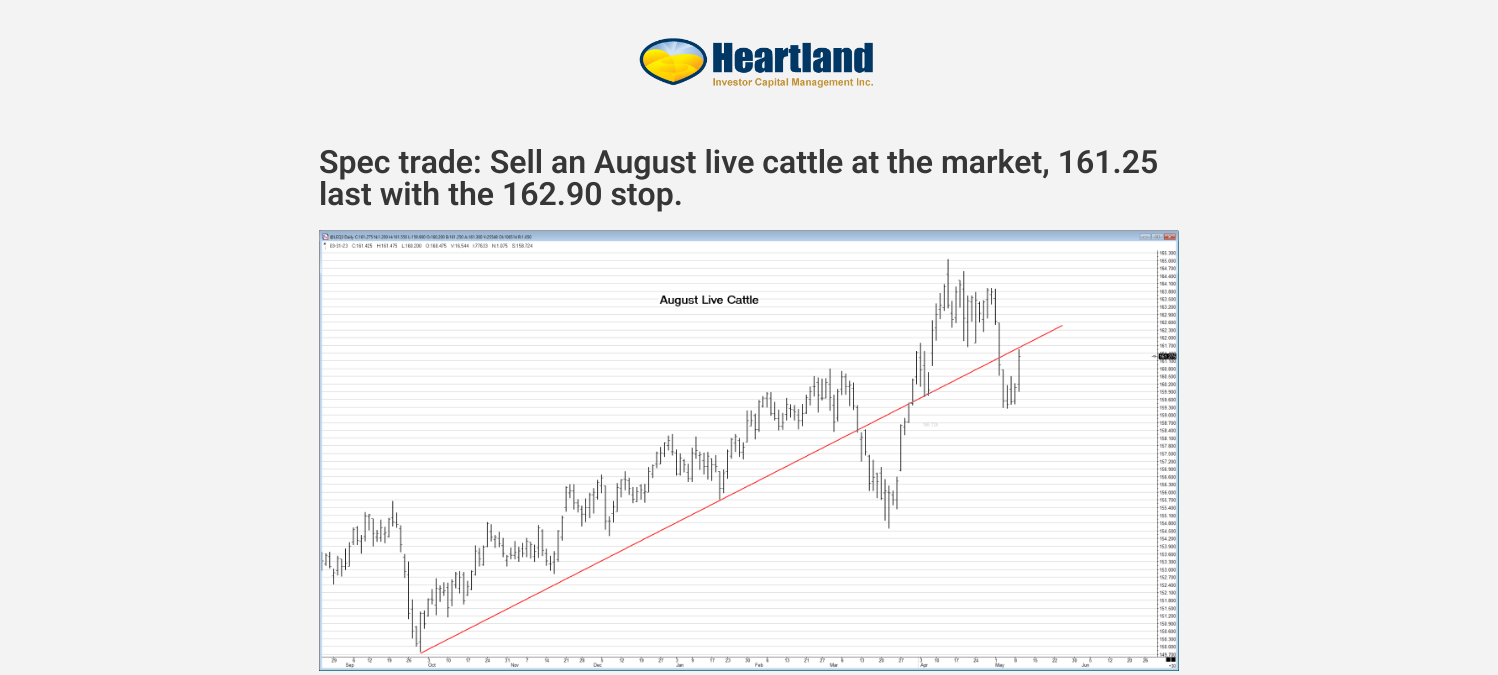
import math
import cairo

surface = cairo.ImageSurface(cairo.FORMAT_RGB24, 1498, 675)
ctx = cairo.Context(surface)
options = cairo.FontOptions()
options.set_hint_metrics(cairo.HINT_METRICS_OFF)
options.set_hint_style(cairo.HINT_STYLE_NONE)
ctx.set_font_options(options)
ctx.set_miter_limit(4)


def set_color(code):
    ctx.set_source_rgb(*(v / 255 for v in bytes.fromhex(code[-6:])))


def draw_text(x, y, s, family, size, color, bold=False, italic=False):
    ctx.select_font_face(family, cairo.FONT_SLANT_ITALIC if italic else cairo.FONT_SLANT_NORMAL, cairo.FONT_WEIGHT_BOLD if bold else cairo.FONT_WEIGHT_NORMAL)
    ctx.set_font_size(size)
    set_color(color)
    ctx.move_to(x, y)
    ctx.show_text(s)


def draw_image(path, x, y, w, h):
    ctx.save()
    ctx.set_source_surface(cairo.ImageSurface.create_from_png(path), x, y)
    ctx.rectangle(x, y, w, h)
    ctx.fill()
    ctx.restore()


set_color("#f3f3f3")
ctx.paint()
draw_image("assets/img1.png", 639, 38, 234, 50)
draw_text(319, 173, "Spec trade: Sell an August live cattle at the market, 161.25", "Roboto SemiBold", 32, "#363636")
draw_text(319, 205, "last with the 162.90 stop.", "Roboto SemiBold", 32, "#363636")
draw_image("assets/img2.png", 319, 230, 860, 441)
surface.write_to_png("output.png")
